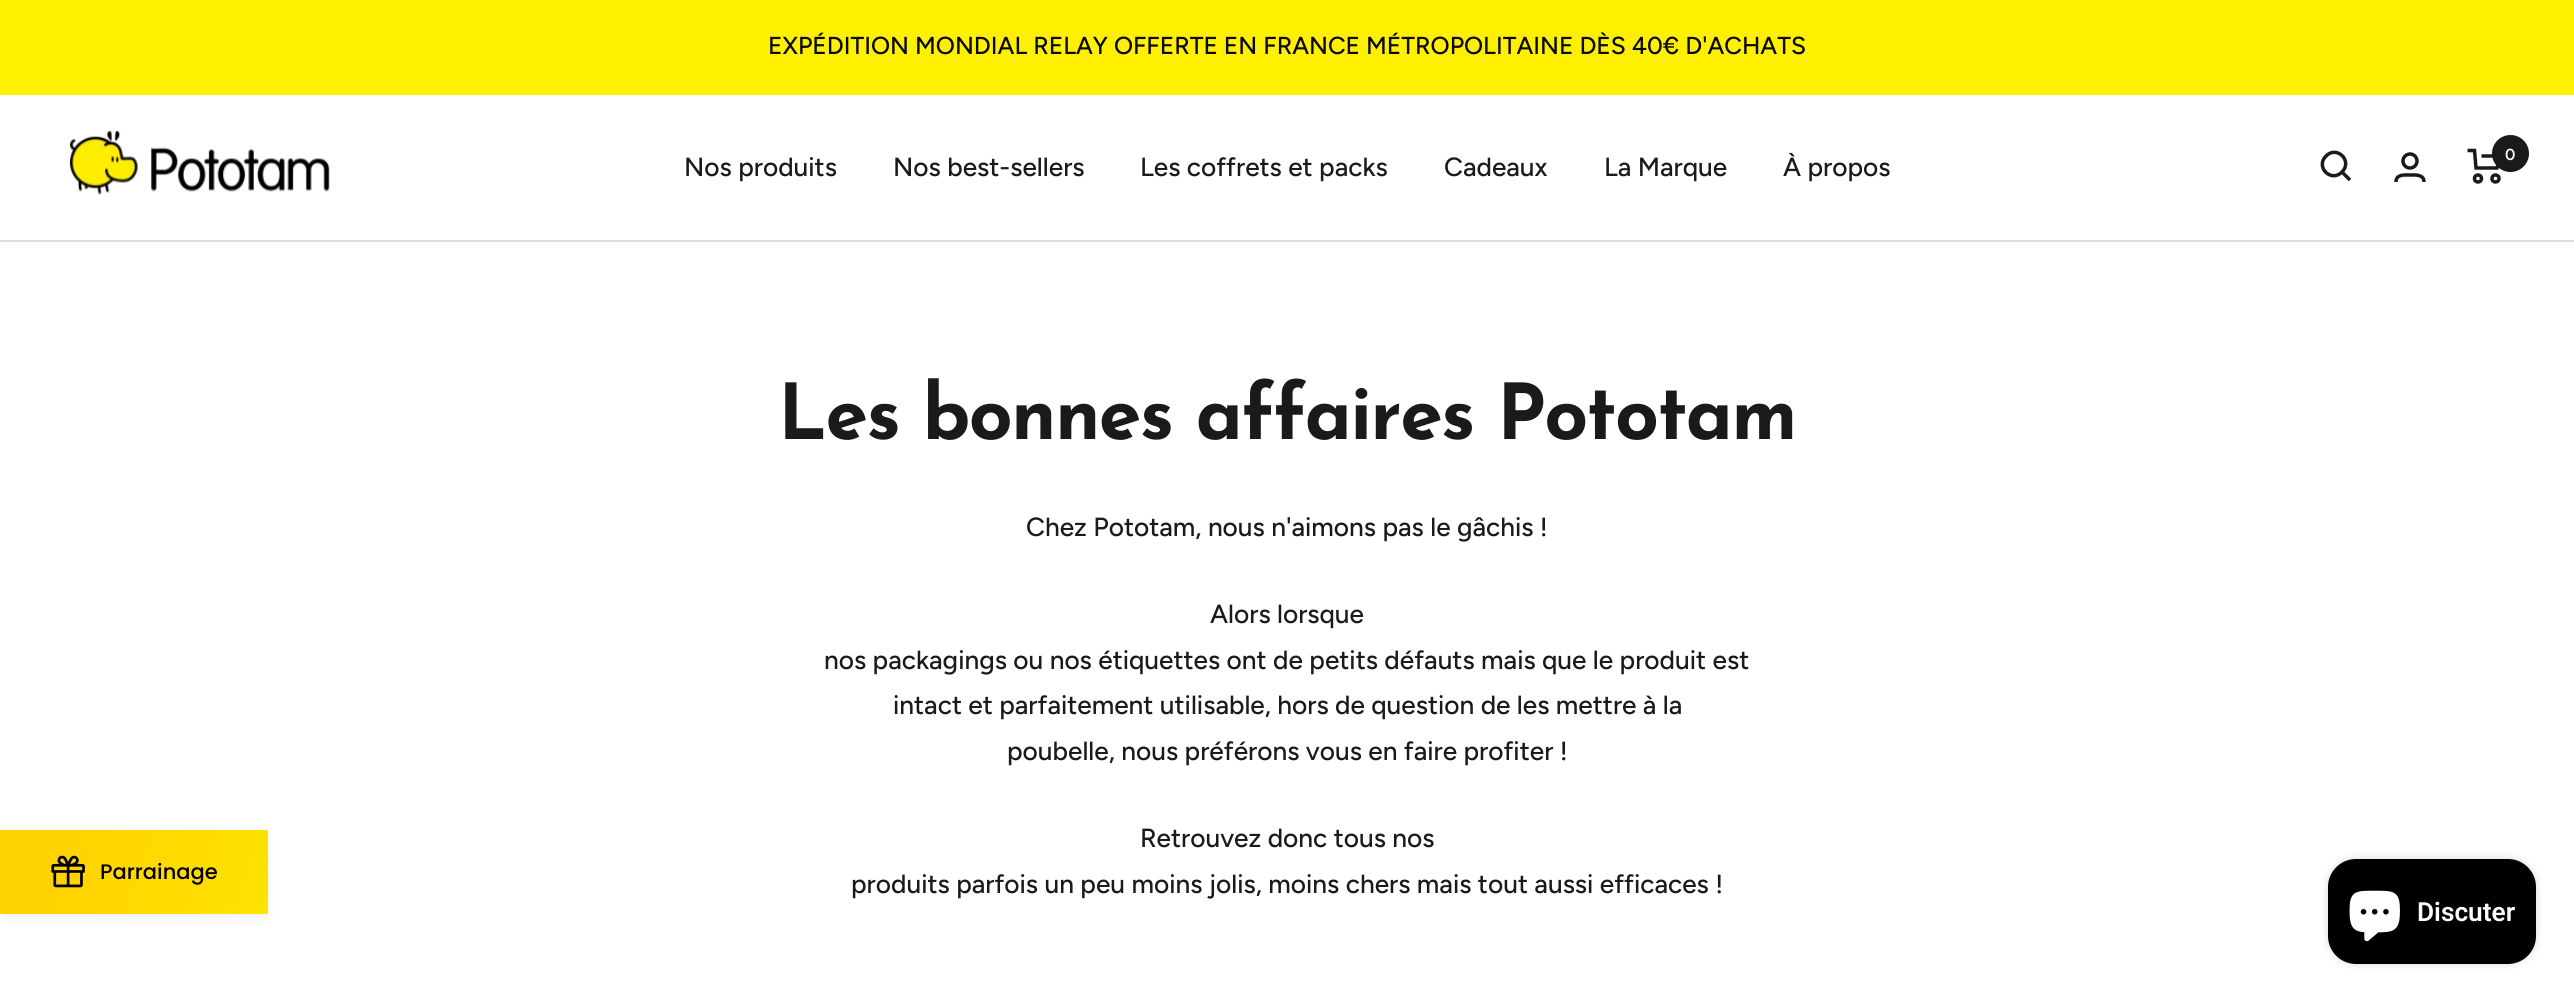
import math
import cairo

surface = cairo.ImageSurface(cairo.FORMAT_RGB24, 2574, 1001)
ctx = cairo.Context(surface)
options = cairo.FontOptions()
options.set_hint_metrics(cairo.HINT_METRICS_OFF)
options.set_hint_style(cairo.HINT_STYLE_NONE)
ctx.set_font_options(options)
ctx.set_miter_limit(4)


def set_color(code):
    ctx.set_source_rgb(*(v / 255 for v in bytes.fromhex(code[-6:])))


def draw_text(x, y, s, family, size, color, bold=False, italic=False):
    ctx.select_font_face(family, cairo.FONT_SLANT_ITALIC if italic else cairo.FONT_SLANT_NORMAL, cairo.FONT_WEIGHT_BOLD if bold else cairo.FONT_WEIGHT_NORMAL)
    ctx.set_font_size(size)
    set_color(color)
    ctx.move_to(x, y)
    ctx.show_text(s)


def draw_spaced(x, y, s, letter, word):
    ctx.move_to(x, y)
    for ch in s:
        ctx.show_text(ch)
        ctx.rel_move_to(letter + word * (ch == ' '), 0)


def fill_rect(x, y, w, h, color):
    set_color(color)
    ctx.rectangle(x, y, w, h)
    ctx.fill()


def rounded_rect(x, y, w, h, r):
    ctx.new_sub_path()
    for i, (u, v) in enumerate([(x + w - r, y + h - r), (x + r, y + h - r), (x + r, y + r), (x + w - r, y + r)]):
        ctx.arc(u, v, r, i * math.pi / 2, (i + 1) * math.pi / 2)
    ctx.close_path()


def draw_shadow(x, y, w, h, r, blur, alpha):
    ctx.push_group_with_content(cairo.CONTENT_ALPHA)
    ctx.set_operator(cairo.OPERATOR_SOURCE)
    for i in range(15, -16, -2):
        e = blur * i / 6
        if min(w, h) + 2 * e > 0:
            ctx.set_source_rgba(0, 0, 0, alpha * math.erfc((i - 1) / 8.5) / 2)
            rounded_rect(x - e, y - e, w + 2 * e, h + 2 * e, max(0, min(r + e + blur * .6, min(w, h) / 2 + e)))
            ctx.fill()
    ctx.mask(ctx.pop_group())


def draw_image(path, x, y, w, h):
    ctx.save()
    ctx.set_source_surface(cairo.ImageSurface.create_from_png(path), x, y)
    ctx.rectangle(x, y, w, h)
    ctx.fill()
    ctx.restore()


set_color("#ffffff")
ctx.paint()
fill_rect(0, 0, 2574, 95, "#fff000")
draw_text(768, 54, "EXPÉDITION MONDIAL RELAY OFFERTE EN FRANCE MÉTROPOLITAINE DÈS 40€ D'ACHATS", "Figtree Medium", 24.5, "#090909")
fill_rect(0, 240, 2574, 2, "#dddddd")
draw_image("assets/img1.png", 70, 131, 260, 64)
draw_text(684, 176, "Nos produits", "Figtree Medium", 26.25, "#1a1a1a")
draw_text(893, 176, "Nos best-sellers", "Figtree Medium", 26.25, "#1a1a1a")
draw_text(1140, 176, "Les coffrets et packs", "Figtree Medium", 26.25, "#1a1a1a")
draw_text(1444, 176, "Cadeaux", "Figtree Medium", 26.25, "#1a1a1a")
draw_text(1604, 176, "La Marque", "Figtree Medium", 26.25, "#1a1a1a")
draw_text(1783, 176, "À propos", "Figtree Medium", 26.25, "#1a1a1a")
ctx.new_path()
ctx.move_to(2342, 172)
ctx.curve_to(2353, 161, 2337, 145, 2326, 156)
ctx.curve_to(2315, 167, 2331, 183, 2342, 172)
ctx.close_path()
ctx.move_to(2342, 172)
ctx.line_to(2350, 180)
ctx.set_line_width(3.5)
ctx.stroke()
ctx.arc(2410, 161, 7, 0, 2 * math.pi)
ctx.stroke()
ctx.new_path()
ctx.move_to(2396, 182)
ctx.curve_to(2396, 174, 2404.5, 175, 2410, 175)
ctx.curve_to(2415, 175, 2424, 174, 2424, 182)
ctx.stroke()
ctx.new_path()
ctx.move_to(2467.5, 150.5)
ctx.line_to(2474.5, 150.5)
ctx.line_to(2476, 168)
ctx.line_to(2497, 168)
ctx.line_to(2501, 156)
ctx.line_to(2481.5, 156)
ctx.stroke()
ctx.arc(2478, 178.5, 3.5, 0, 2 * math.pi)
ctx.stroke()
ctx.arc(2495.5, 178.5, 3.5, 0, 2 * math.pi)
ctx.stroke()
ctx.arc(2510.5, 153.5, 18.5, 0, 2 * math.pi)
ctx.fill()
draw_text(2505, 160, "0", "Figtree SemiBold", 16, "#ffffff")
set_color("#444444")
draw_shadow(4, 840, 260, 77, 0, 7, 0.08)
gradient = cairo.LinearGradient(1.7, 825, 372, 956)
gradient.add_color_stop_rgba(0.17, 1, 0.827, 0.004, 1)
gradient.add_color_stop_rgba(1, 1, 0.918, 0.004, 1)
ctx.set_source(gradient)
ctx.rectangle(0, 830, 268, 84)
ctx.fill()
draw_image("assets/img2.png", 51, 855, 34, 33)
draw_text(100, 879, "Parrainage", "Poppins Medium", 21, "#000000")
ctx.select_font_face("Josefin Sans", cairo.FONT_SLANT_NORMAL, cairo.FONT_WEIGHT_BOLD)
ctx.set_font_size(77)
set_color("#1a1a1a")
draw_spaced(778, 439, "Les bonnes affaires Pototam", -1.75, 0)
draw_text(1026, 536, "Chez Pototam, nous n'aimons pas le gâchis !", "Figtree Medium", 26.25, "#1a1a1a")
draw_text(1210, 623, "Alors lorsque", "Figtree Medium", 26.25, "#1a1a1a")
draw_text(824, 669, "nos packagings ou nos étiquettes ont de petits défauts mais que le produit est", "Figtree Medium", 26.25, "#1a1a1a")
draw_text(893, 714, "intact et parfaitement utilisable, hors de question de les mettre à la", "Figtree Medium", 26.25, "#1a1a1a")
draw_text(1007, 760, "poubelle, nous préférons vous en faire profiter !", "Figtree Medium", 26.25, "#1a1a1a")
draw_text(1140, 847, "Retrouvez donc tous nos", "Figtree Medium", 26.25, "#1a1a1a")
draw_text(851, 893, "produits parfois un peu moins jolis, moins chers mais tout aussi efficaces !", "Figtree Medium", 26.25, "#1a1a1a")
set_color("#000000")
draw_shadow(2328, 859, 208, 105, 28, 4.5, 0.15)
set_color("#000000")
rounded_rect(2328, 859, 208, 105, 28)
ctx.fill()
draw_image("assets/img3.png", 2349, 890, 51, 52)
draw_text(2417, 921, "Discuter", "Roboto SemiBold", 26.25, "#ffffff")
surface.write_to_png("output.png")
